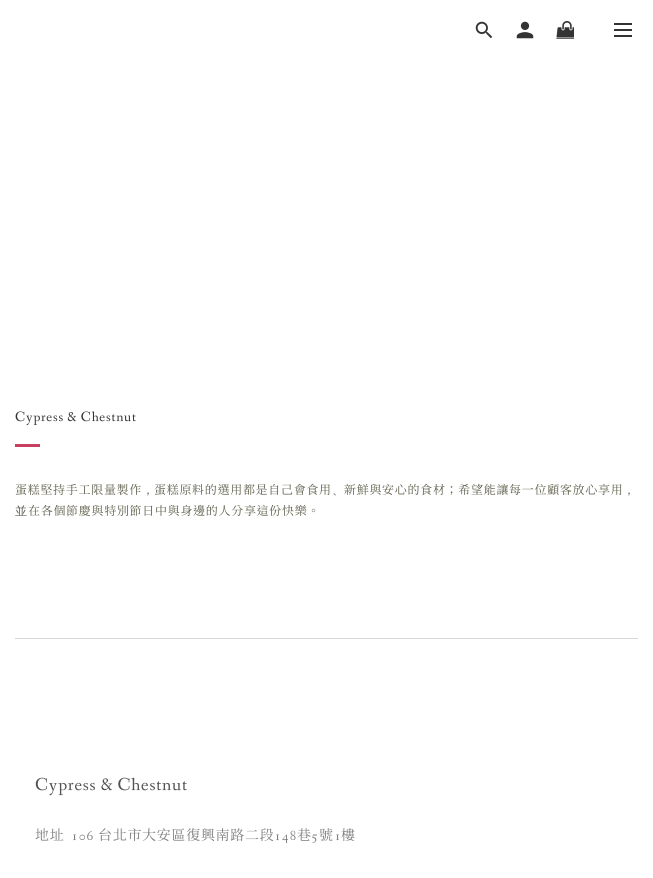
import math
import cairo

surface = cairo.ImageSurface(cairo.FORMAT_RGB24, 653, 878)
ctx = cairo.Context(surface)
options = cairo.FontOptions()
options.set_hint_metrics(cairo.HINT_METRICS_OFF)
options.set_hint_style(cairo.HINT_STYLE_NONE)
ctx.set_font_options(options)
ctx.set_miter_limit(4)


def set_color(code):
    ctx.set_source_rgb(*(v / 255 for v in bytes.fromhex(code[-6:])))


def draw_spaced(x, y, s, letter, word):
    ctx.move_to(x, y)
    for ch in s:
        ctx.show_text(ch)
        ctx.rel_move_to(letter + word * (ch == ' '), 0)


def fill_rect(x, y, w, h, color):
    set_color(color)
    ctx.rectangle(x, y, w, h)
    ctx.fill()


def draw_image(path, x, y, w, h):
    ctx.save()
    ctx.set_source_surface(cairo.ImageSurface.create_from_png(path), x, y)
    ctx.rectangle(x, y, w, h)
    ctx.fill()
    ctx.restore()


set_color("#ffffff")
ctx.paint()
draw_image("assets/img1.png", 475, 21, 18, 18)
draw_image("assets/img2.png", 516, 21, 18, 18)
draw_image("assets/img3.png", 556, 21, 18, 18)
fill_rect(614, 29, 18, 2, "#333333")
fill_rect(614, 23, 18, 2, "#333333")
fill_rect(614, 35, 18, 2, "#333333")
ctx.select_font_face("Fanwood Text")
ctx.set_font_size(14)
draw_spaced(15, 421, "Cypress & Chestnut", 0.7, 0)
fill_rect(15, 444, 25, 3, "#c74060")
ctx.select_font_face("Noto Serif TC")
ctx.set_font_size(12)
set_color("#5e5e4b")
draw_spaced(15, 494, "蛋糕堅持手工限量製作", 0.7, 0)
ctx.select_font_face("WenQuanYi Zen Hei Medium")
set_color("#5c5c56")
draw_spaced(142, 494, "，", 0.7, 0)
ctx.select_font_face("Noto Serif TC")
set_color("#5e5e4b")
draw_spaced(154, 494, "蛋糕原料的選用都是自己會食用", 0.7, 0)
ctx.select_font_face("WenQuanYi Zen Hei Medium")
set_color("#5c5c56")
draw_spaced(332, 494, "、", 0.7, 0)
ctx.select_font_face("Noto Serif TC")
set_color("#5e5e4b")
draw_spaced(344, 494, "新鮮與安心的食材；希望能讓每一位顧客放心享用", 0.7, 0)
ctx.select_font_face("WenQuanYi Zen Hei Medium")
set_color("#5c5c56")
draw_spaced(623, 494, "，", 0.7, 0)
draw_spaced(15, 515, "並", 0.7, 0)
ctx.select_font_face("Noto Serif TC")
set_color("#5e5e4b")
draw_spaced(28, 515, "在各個節慶與特別節日中與身邊的人分享這份快樂。", 0.7, 0)
fill_rect(15, 638, 623, 1, "#d6d6d6")
ctx.select_font_face("Fanwood Text")
ctx.set_font_size(18)
set_color("#535151")
draw_spaced(35, 790, "Cypress & Chestnut", 0.7, 0)
ctx.select_font_face("Noto Serif TC")
ctx.set_font_size(14)
set_color("#7d7d7d")
draw_spaced(35, 840, "地址", 0.7, 0)
ctx.select_font_face("Fanwood Text")
draw_spaced(71, 840, "106", 0.7, 0)
ctx.select_font_face("Noto Serif TC")
draw_spaced(98, 840, "台北市大安區復興南路二段", 0.7, 0)
ctx.select_font_face("Fanwood Text")
draw_spaced(274, 840, "148", 0.7, 0)
ctx.select_font_face("Noto Serif TC")
draw_spaced(297, 840, "巷", 0.7, 0)
ctx.select_font_face("Fanwood Text")
draw_spaced(311, 840, "5", 0.7, 0)
ctx.select_font_face("Noto Serif TC")
draw_spaced(319, 840, "號", 0.7, 0)
ctx.select_font_face("Fanwood Text")
draw_spaced(334, 840, "1", 0.7, 0)
ctx.select_font_face("Noto Serif TC")
draw_spaced(341, 840, "樓", 0.7, 0)
surface.write_to_png("output.png")
